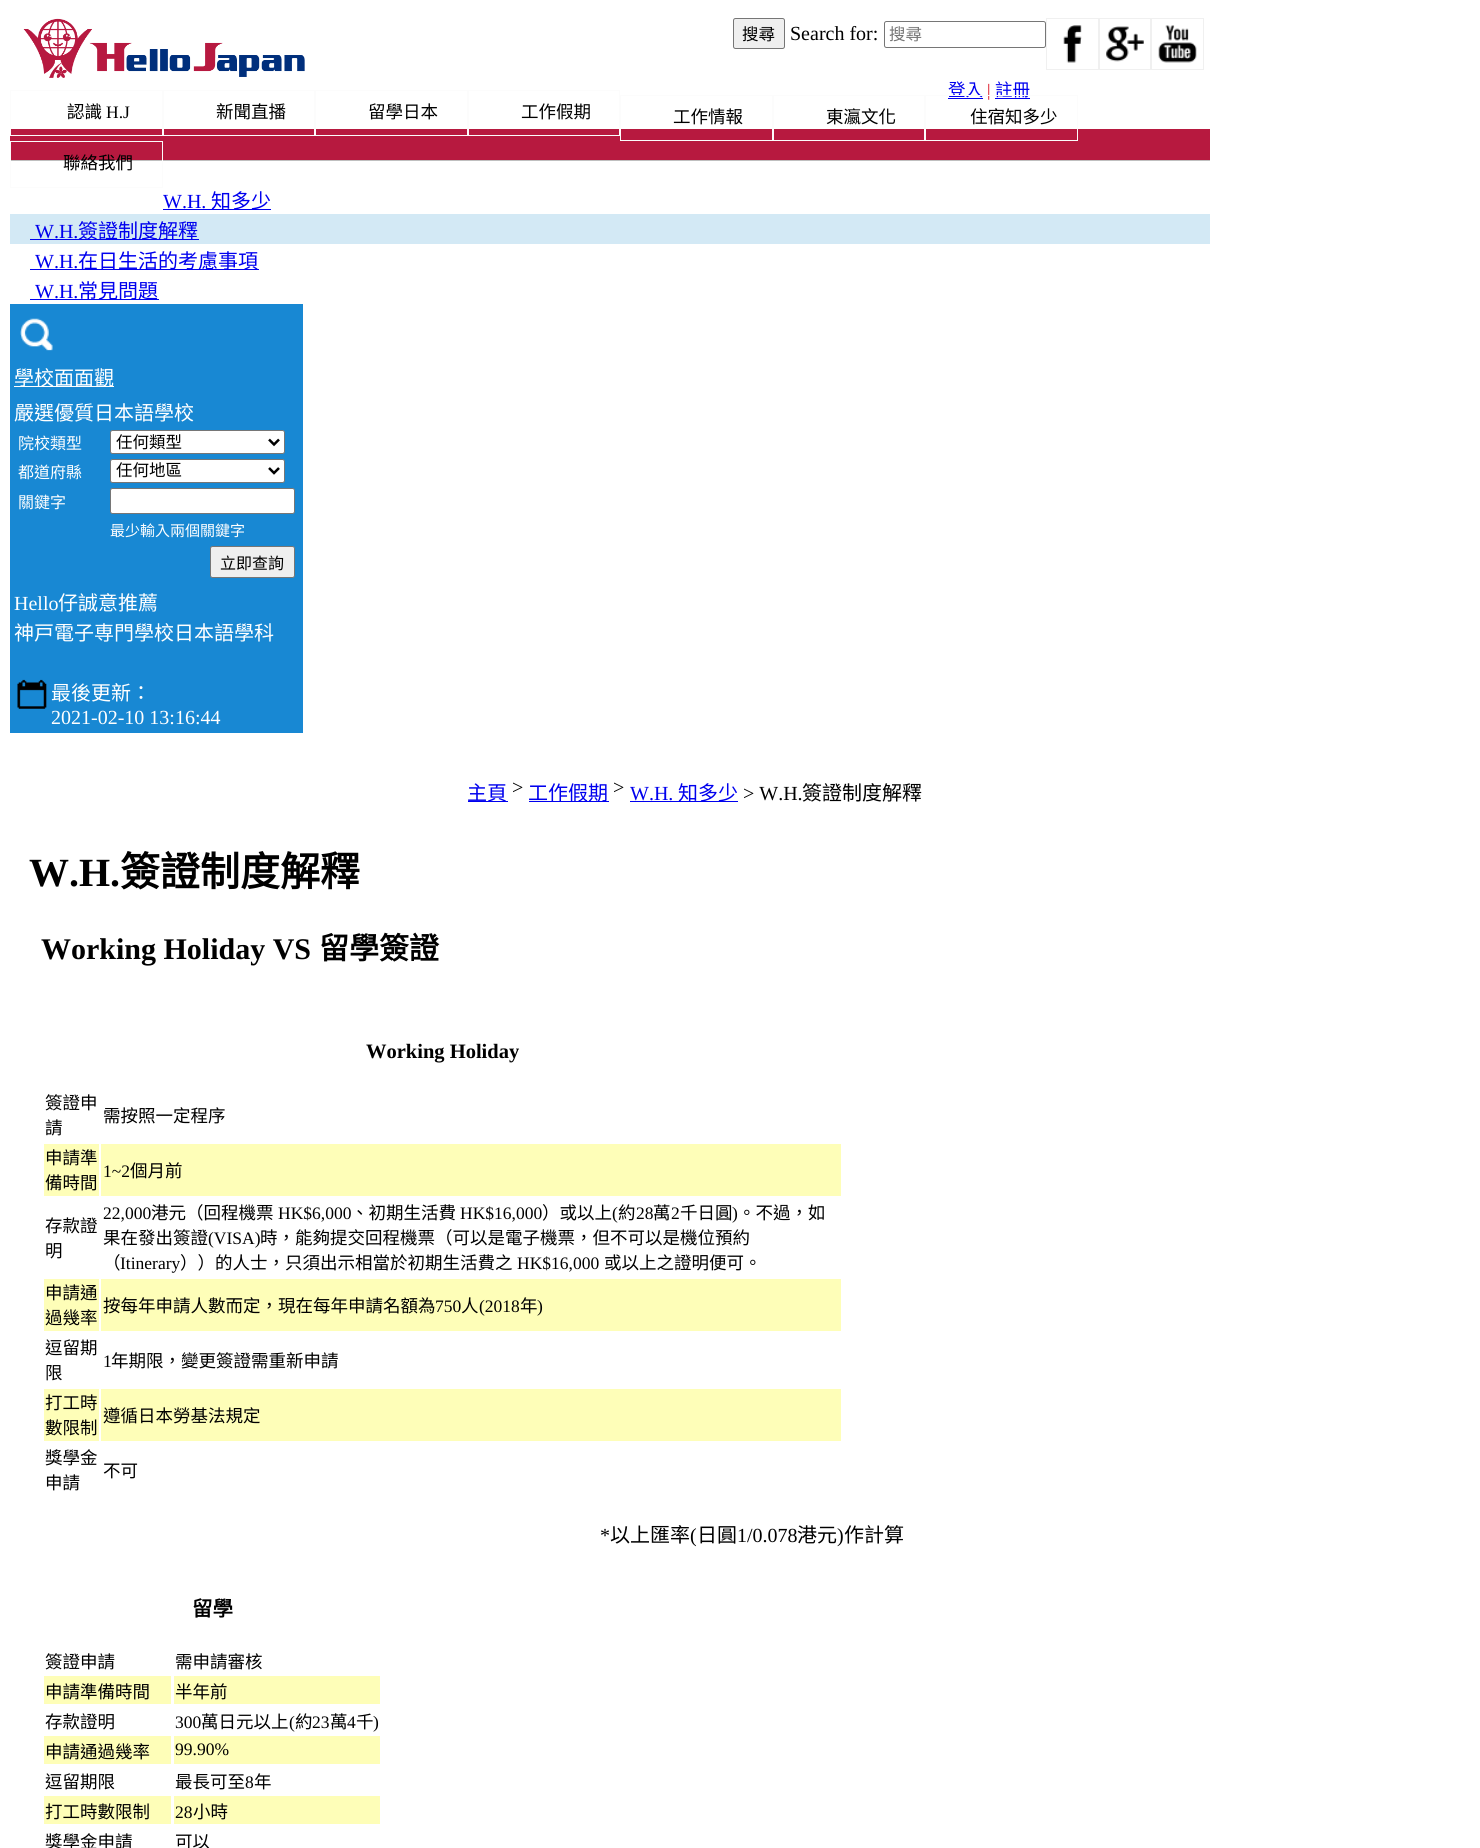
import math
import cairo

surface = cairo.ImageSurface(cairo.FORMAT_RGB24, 1480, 1848)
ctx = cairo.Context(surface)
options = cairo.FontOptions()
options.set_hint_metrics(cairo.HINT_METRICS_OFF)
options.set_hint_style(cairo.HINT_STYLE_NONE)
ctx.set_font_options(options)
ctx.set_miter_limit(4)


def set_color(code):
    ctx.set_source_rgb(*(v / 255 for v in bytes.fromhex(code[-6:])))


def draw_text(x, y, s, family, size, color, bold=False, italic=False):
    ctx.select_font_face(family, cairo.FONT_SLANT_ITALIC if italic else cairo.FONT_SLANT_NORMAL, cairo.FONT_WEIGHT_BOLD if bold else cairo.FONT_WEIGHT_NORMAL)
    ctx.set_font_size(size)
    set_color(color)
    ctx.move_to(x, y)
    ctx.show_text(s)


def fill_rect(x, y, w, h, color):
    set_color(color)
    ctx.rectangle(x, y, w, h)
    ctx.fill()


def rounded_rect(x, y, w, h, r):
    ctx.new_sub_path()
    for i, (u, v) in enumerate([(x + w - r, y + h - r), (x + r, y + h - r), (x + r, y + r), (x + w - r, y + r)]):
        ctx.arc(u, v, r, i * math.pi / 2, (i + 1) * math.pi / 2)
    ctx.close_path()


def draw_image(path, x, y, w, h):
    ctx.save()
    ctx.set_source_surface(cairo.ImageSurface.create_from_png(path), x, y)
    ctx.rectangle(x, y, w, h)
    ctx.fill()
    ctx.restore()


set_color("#ffffff")
ctx.paint()
draw_image("assets/img1.png", 23, 18, 282, 60)
set_color("#efefef")
rounded_rect(733.5, 18.5, 51, 30, 2)
ctx.fill_preserve()
set_color("#767676")
ctx.set_line_width(1)
ctx.stroke()
draw_text(742, 40, "搜尋", "Noto Sans CJK TC", 16.5, "#000000")
draw_text(790, 40, "Search for:", "Liberation Serif", 20, "#000000")
rounded_rect(884.5, 21.5, 161, 26, 2)
set_color("#767676")
ctx.stroke()
draw_text(889, 40, "搜尋", "Noto Sans CJK TC", 16.5, "#757575")
ctx.rectangle(1046.5, 18.5, 52, 51)
set_color("#f0f0f0")
ctx.stroke()
draw_image("assets/img2.png", 1063, 25, 19, 38)
ctx.rectangle(1099.5, 18.5, 51, 51)
ctx.stroke()
draw_image("assets/img3.png", 1106, 26, 38, 36)
ctx.rectangle(1151.5, 18.5, 52, 51)
ctx.stroke()
draw_image("assets/img4.png", 1158, 25, 39, 38)
draw_text(948, 96, "登入", "Noto Sans CJK TC", 17.5, "#0000ee")
fill_rect(948, 98, 35, 1, "#0000ee")
draw_text(987, 96, "|", "Liberation Serif", 17.5, "#da0416")
draw_text(995, 96, "註冊", "Noto Sans CJK TC", 17.5, "#0000ee")
fill_rect(995, 98, 35, 1, "#0000ee")
fill_rect(10, 129, 1200, 31, "#b7193f")
ctx.rectangle(10.5, 90.5, 152, 45)
set_color("#fcfcfc")
ctx.stroke()
draw_text(67, 118, "認識", "Noto Sans CJK TC", 17.5, "#000000")
draw_text(106, 118, "H.J", "Liberation Serif", 17.5, "#000000")
ctx.rectangle(163.5, 90.5, 151, 45)
set_color("#fcfcfc")
ctx.stroke()
draw_text(216, 118, "新聞直播", "Noto Sans CJK TC", 17.5, "#000000")
ctx.rectangle(315.5, 90.5, 152, 45)
set_color("#fcfcfc")
ctx.stroke()
draw_text(368, 118, "留學日本", "Noto Sans CJK TC", 17.5, "#000000")
ctx.rectangle(468.5, 90.5, 151, 45)
set_color("#fcfcfc")
ctx.stroke()
draw_text(521, 118, "工作假期", "Noto Sans CJK TC", 17.5, "#000000")
ctx.rectangle(620.5, 95.5, 152, 45)
set_color("#fcfcfc")
ctx.stroke()
draw_text(673, 123, "工作情報", "Noto Sans CJK TC", 17.5, "#000000")
ctx.rectangle(773.5, 95.5, 151, 45)
set_color("#fcfcfc")
ctx.stroke()
draw_text(826, 123, "東瀛文化", "Noto Sans CJK TC", 17.5, "#000000")
ctx.rectangle(925.5, 95.5, 152, 45)
set_color("#fcfcfc")
ctx.stroke()
draw_text(970, 123, "住宿知多少", "Noto Sans CJK TC", 17.5, "#000000")
fill_rect(10, 160, 1200, 1, "#bfbfbf")
ctx.rectangle(10.5, 141.5, 152, 46)
set_color("#fcfcfc")
ctx.stroke()
draw_text(63, 169, "聯絡我們", "Noto Sans CJK TC", 17.5, "#000000")
draw_text(163, 208, "W.H.", "Liberation Serif", 20, "#0000ee")
fill_rect(163, 209, 108, 1, "#0000ee")
draw_text(211, 208, "知多少", "Noto Sans CJK TC", 20, "#0000ee")
fill_rect(10, 214, 1200, 30, "#d3e9f5")
draw_text(35, 238, "W.H.", "Liberation Serif", 20, "#0000ee")
fill_rect(30, 239, 169, 1, "#0000ee")
draw_text(78, 238, "簽證制度解釋", "Noto Sans CJK TC", 20, "#0000ee")
draw_text(35, 268, "W.H.", "Liberation Serif", 20, "#0000ee")
fill_rect(30, 269, 229, 1, "#0000ee")
draw_text(78, 268, "在日生活的考慮事項", "Noto Sans CJK TC", 20, "#0000ee")
draw_text(35, 298, "W.H.", "Liberation Serif", 20, "#0000ee")
fill_rect(30, 299, 129, 1, "#0000ee")
draw_text(78, 298, "常見問題", "Noto Sans CJK TC", 20, "#0000ee")
fill_rect(10, 304, 293, 429, "#1888d3")
draw_image("assets/img5.png", 20, 318, 33, 33)
fill_rect(14, 386, 100, 1, "#ffffff")
draw_text(14, 385, "學校面面觀", "Noto Sans CJK TC", 20, "#ffffff")
draw_text(14, 420, "嚴選優質日本語學校", "Noto Sans CJK TC", 20, "#ffffff")
draw_text(18, 449, "院校類型", "Noto Sans CJK TC", 16, "#ffffff")
rounded_rect(110.5, 430.5, 174, 23, 2)
ctx.fill_preserve()
set_color("#767676")
ctx.stroke()
ctx.new_path()
ctx.move_to(269, 439.5)
ctx.line_to(274, 444.5)
ctx.line_to(279, 439.5)
set_color("#000000")
ctx.set_line_width(2.5)
ctx.stroke()
draw_text(116, 448, "任何類型", "Noto Sans CJK TC", 16.5, "#000000")
draw_text(18, 478, "都道府縣", "Noto Sans CJK TC", 16, "#ffffff")
rounded_rect(110.5, 459.5, 174, 23, 2)
ctx.fill_preserve()
set_color("#767676")
ctx.set_line_width(1)
ctx.stroke()
ctx.new_path()
ctx.move_to(269, 468)
ctx.line_to(274, 473)
ctx.line_to(279, 468)
set_color("#000000")
ctx.set_line_width(2.5)
ctx.stroke()
draw_text(116, 476, "任何地區", "Noto Sans CJK TC", 16.5, "#000000")
draw_text(18, 508, "關鍵字", "Noto Sans CJK TC", 16, "#ffffff")
rounded_rect(110.5, 488.5, 184, 25, 2)
ctx.fill_preserve()
set_color("#767676")
ctx.set_line_width(1)
ctx.stroke()
draw_text(110, 536, "最少輸入兩個關鍵字", "Noto Sans CJK TC", 15, "#ffffff")
set_color("#efefef")
rounded_rect(210.5, 546.5, 84, 31, 2)
ctx.fill_preserve()
set_color("#767676")
ctx.stroke()
draw_text(220, 569, "立即查詢", "Noto Sans CJK TC", 16, "#000000")
draw_text(14, 610, "Hello", "Liberation Serif", 20, "#ffffff")
draw_text(58, 610, "仔誠意推薦", "Noto Sans CJK TC", 20, "#ffffff")
draw_text(14, 640, "神戸電子専門學校日本語學科", "Noto Sans CJK TC", 20, "#ffffff")
draw_image("assets/img6.png", 17, 679, 30, 30)
draw_text(51, 700, "最後更新：", "Noto Sans CJK TC", 20, "#ffffff")
draw_text(51, 724, "2021-02-10 13:16:44", "Liberation Serif", 20, "#ffffff")
fill_rect(468, 801, 40, 1, "#0000ee")
draw_text(467, 800, "主頁", "Noto Sans CJK TC", 20, "#0000ee")
draw_text(512, 794, ">", "Liberation Serif", 20, "#000000")
fill_rect(529, 801, 80, 1, "#0000ee")
draw_text(528, 800, "工作假期", "Noto Sans CJK TC", 20, "#0000ee")
draw_text(613, 794, ">", "Liberation Serif", 20, "#000000")
draw_text(630, 800, "W.H.", "Liberation Serif", 20, "#0000ee")
fill_rect(630, 801, 108, 1, "#0000ee")
draw_text(678, 800, "知多少", "Noto Sans CJK TC", 20, "#0000ee")
draw_text(743, 800, "> W.H.", "Liberation Serif", 20, "#000000")
draw_text(802, 800, "簽證制度解釋", "Noto Sans CJK TC", 20, "#000000")
draw_text(29, 886, "W.H.", "Liberation Serif", 40, "#000000", bold=True)
draw_text(120, 886, "簽證制度解釋", "Noto Sans CJK TC", 40, "#000000", bold=True)
draw_text(41, 959, "Working Holiday VS", "Liberation Serif", 30, "#000000", bold=True)
draw_text(319, 959, "留學簽證", "Noto Sans CJK TC", 30, "#000000", bold=True)
draw_text(366, 1058, "Working Holiday", "Liberation Serif", 20.5, "#000000", bold=True)
draw_text(45, 1109, "簽證申", "Noto Sans CJK TC", 17.5, "#000000")
draw_text(45, 1134, "請", "Noto Sans CJK TC", 17.5, "#000000")
draw_text(103, 1122, "需按照一定程序", "Noto Sans CJK TC", 17.5, "#000000")
fill_rect(44, 1144, 55, 52, "#fefeb8")
draw_text(45, 1164, "申請準", "Noto Sans CJK TC", 17.5, "#000000")
draw_text(45, 1189, "備時間", "Noto Sans CJK TC", 17.5, "#000000")
fill_rect(101, 1144, 740, 52, "#fefeb8")
draw_text(103, 1177, "1~2", "Liberation Serif", 17.5, "#000000")
draw_text(130, 1177, "個月前", "Noto Sans CJK TC", 17.5, "#000000")
draw_text(45, 1232, "存款證", "Noto Sans CJK TC", 17.5, "#000000")
draw_text(45, 1257, "明", "Noto Sans CJK TC", 17.5, "#000000")
draw_text(103, 1219, "22,000", "Liberation Serif", 17.5, "#000000")
draw_text(151, 1219, "港元（回程機票", "Noto Sans CJK TC", 17.5, "#000000")
draw_text(278, 1219, "HK$6,000", "Liberation Serif", 17.5, "#000000")
draw_text(351, 1219, "、初期生活費", "Noto Sans CJK TC", 17.5, "#000000")
draw_text(460, 1219, "HK$16,000", "Liberation Serif", 17.5, "#000000")
draw_text(542, 1219, "）或以上", "Noto Sans CJK TC", 17.5, "#000000")
draw_text(612, 1219, "(", "Liberation Serif", 17.5, "#000000")
draw_text(618, 1219, "約", "Noto Sans CJK TC", 17.5, "#000000")
draw_text(636, 1219, "28", "Liberation Serif", 17.5, "#000000")
draw_text(653, 1219, "萬", "Noto Sans CJK TC", 17.5, "#000000")
draw_text(671, 1219, "2", "Liberation Serif", 17.5, "#000000")
draw_text(680, 1219, "千日圓", "Noto Sans CJK TC", 17.5, "#000000")
draw_text(732, 1219, ")", "Liberation Serif", 17.5, "#000000")
draw_text(738, 1219, "。不過，如", "Noto Sans CJK TC", 17.5, "#000000")
draw_text(103, 1244, "果在發出簽證", "Noto Sans CJK TC", 17.5, "#000000")
draw_text(208, 1244, "(VISA)", "Liberation Serif", 17.5, "#000000")
draw_text(260, 1244, "時，能夠提交回程機票（可以是電子機票，但不可以是機位預約", "Noto Sans CJK TC", 17.5, "#000000")
draw_text(103, 1269, "（", "Noto Sans CJK TC", 17.5, "#000000")
draw_text(120, 1269, "Itinerary", "Liberation Serif", 17.5, "#000000")
draw_text(180, 1269, "））的人士，只須出示相當於初期生活費之", "Noto Sans CJK TC", 17.5, "#000000")
draw_text(517, 1269, "HK$16,000", "Liberation Serif", 17.5, "#000000")
draw_text(604, 1269, "或以上之證明便可。", "Noto Sans CJK TC", 17.5, "#000000")
fill_rect(44, 1279, 55, 52, "#fefeb8")
draw_text(45, 1299, "申請通", "Noto Sans CJK TC", 17.5, "#000000")
draw_text(45, 1324, "過幾率", "Noto Sans CJK TC", 17.5, "#000000")
fill_rect(101, 1279, 740, 52, "#fefeb8")
draw_text(103, 1312, "按每年申請人數而定，現在每年申請名額為", "Noto Sans CJK TC", 17.5, "#000000")
draw_text(435, 1312, "750", "Liberation Serif", 17.5, "#000000")
draw_text(461, 1312, "人", "Noto Sans CJK TC", 17.5, "#000000")
draw_text(479, 1312, "(2018", "Liberation Serif", 17.5, "#000000")
draw_text(520, 1312, "年", "Noto Sans CJK TC", 17.5, "#000000")
draw_text(537, 1312, ")", "Liberation Serif", 17.5, "#000000")
draw_text(45, 1354, "逗留期", "Noto Sans CJK TC", 17.5, "#000000")
draw_text(45, 1379, "限", "Noto Sans CJK TC", 17.5, "#000000")
draw_text(103, 1367, "1", "Liberation Serif", 17.5, "#000000")
draw_text(111, 1367, "年期限，變更簽證需重新申請", "Noto Sans CJK TC", 17.5, "#000000")
fill_rect(44, 1389, 55, 52, "#fefeb8")
draw_text(45, 1409, "打工時", "Noto Sans CJK TC", 17.5, "#000000")
draw_text(45, 1434, "數限制", "Noto Sans CJK TC", 17.5, "#000000")
fill_rect(101, 1389, 740, 52, "#fefeb8")
draw_text(103, 1422, "遵循日本勞基法規定", "Noto Sans CJK TC", 17.5, "#000000")
draw_text(45, 1464, "獎學金", "Noto Sans CJK TC", 17.5, "#000000")
draw_text(45, 1489, "申請", "Noto Sans CJK TC", 17.5, "#000000")
draw_text(103, 1477, "不可", "Noto Sans CJK TC", 17.5, "#000000")
draw_text(600, 1542, "*", "Liberation Serif", 20, "#000000")
draw_text(610, 1542, "以上匯率", "Noto Sans CJK TC", 20, "#000000")
draw_text(690, 1542, "(", "Liberation Serif", 20, "#000000")
draw_text(697, 1542, "日圓", "Noto Sans CJK TC", 20, "#000000")
draw_text(737, 1542, "1/0.078", "Liberation Serif", 20, "#000000")
draw_text(797, 1542, "港元", "Noto Sans CJK TC", 20, "#000000")
draw_text(837, 1542, ")", "Liberation Serif", 20, "#000000")
draw_text(844, 1542, "作計算", "Noto Sans CJK TC", 20, "#000000")
draw_text(192, 1616, "留學", "Noto Sans CJK TC", 20.5, "#000000", bold=True)
draw_text(45, 1668, "簽證申請", "Noto Sans CJK TC", 17.5, "#000000")
draw_text(175, 1668, "需申請審核", "Noto Sans CJK TC", 17.5, "#000000")
fill_rect(44, 1676, 127, 28, "#fefeb8")
draw_text(45, 1698, "申請準備時間", "Noto Sans CJK TC", 17.5, "#000000")
fill_rect(174, 1676, 206, 28, "#fefeb8")
draw_text(175, 1698, "半年前", "Noto Sans CJK TC", 17.5, "#000000")
draw_text(45, 1728, "存款證明", "Noto Sans CJK TC", 17.5, "#000000")
draw_text(175, 1728, "300", "Liberation Serif", 17.5, "#000000")
draw_text(201, 1728, "萬日元以上", "Noto Sans CJK TC", 17.5, "#000000")
draw_text(289, 1728, "(", "Liberation Serif", 17.5, "#000000")
draw_text(295, 1728, "約", "Noto Sans CJK TC", 17.5, "#000000")
draw_text(312, 1728, "23", "Liberation Serif", 17.5, "#000000")
draw_text(330, 1728, "萬", "Noto Sans CJK TC", 17.5, "#000000")
draw_text(347, 1728, "4", "Liberation Serif", 17.5, "#000000")
draw_text(356, 1728, "千", "Noto Sans CJK TC", 17.5, "#000000")
draw_text(373, 1728, ")", "Liberation Serif", 17.5, "#000000")
fill_rect(44, 1736, 127, 28, "#fefeb8")
draw_text(45, 1758, "申請通過幾率", "Noto Sans CJK TC", 17.5, "#000000")
fill_rect(174, 1736, 206, 28, "#fefeb8")
draw_text(175, 1755, "99.90%", "Liberation Serif", 17.5, "#000000")
draw_text(45, 1788, "逗留期限", "Noto Sans CJK TC", 17.5, "#000000")
draw_text(175, 1788, "最長可至", "Noto Sans CJK TC", 17.5, "#000000")
draw_text(245, 1788, "8", "Liberation Serif", 17.5, "#000000")
draw_text(254, 1788, "年", "Noto Sans CJK TC", 17.5, "#000000")
fill_rect(44, 1796, 127, 28, "#fefeb8")
draw_text(45, 1818, "打工時數限制", "Noto Sans CJK TC", 17.5, "#000000")
fill_rect(174, 1796, 206, 28, "#fefeb8")
draw_text(175, 1818, "28", "Liberation Serif", 17.5, "#000000")
draw_text(193, 1818, "小時", "Noto Sans CJK TC", 17.5, "#000000")
draw_text(45, 1848, "獎學金申請", "Noto Sans CJK TC", 17.5, "#000000")
draw_text(175, 1848, "可以", "Noto Sans CJK TC", 17.5, "#000000")
surface.write_to_png("output.png")
